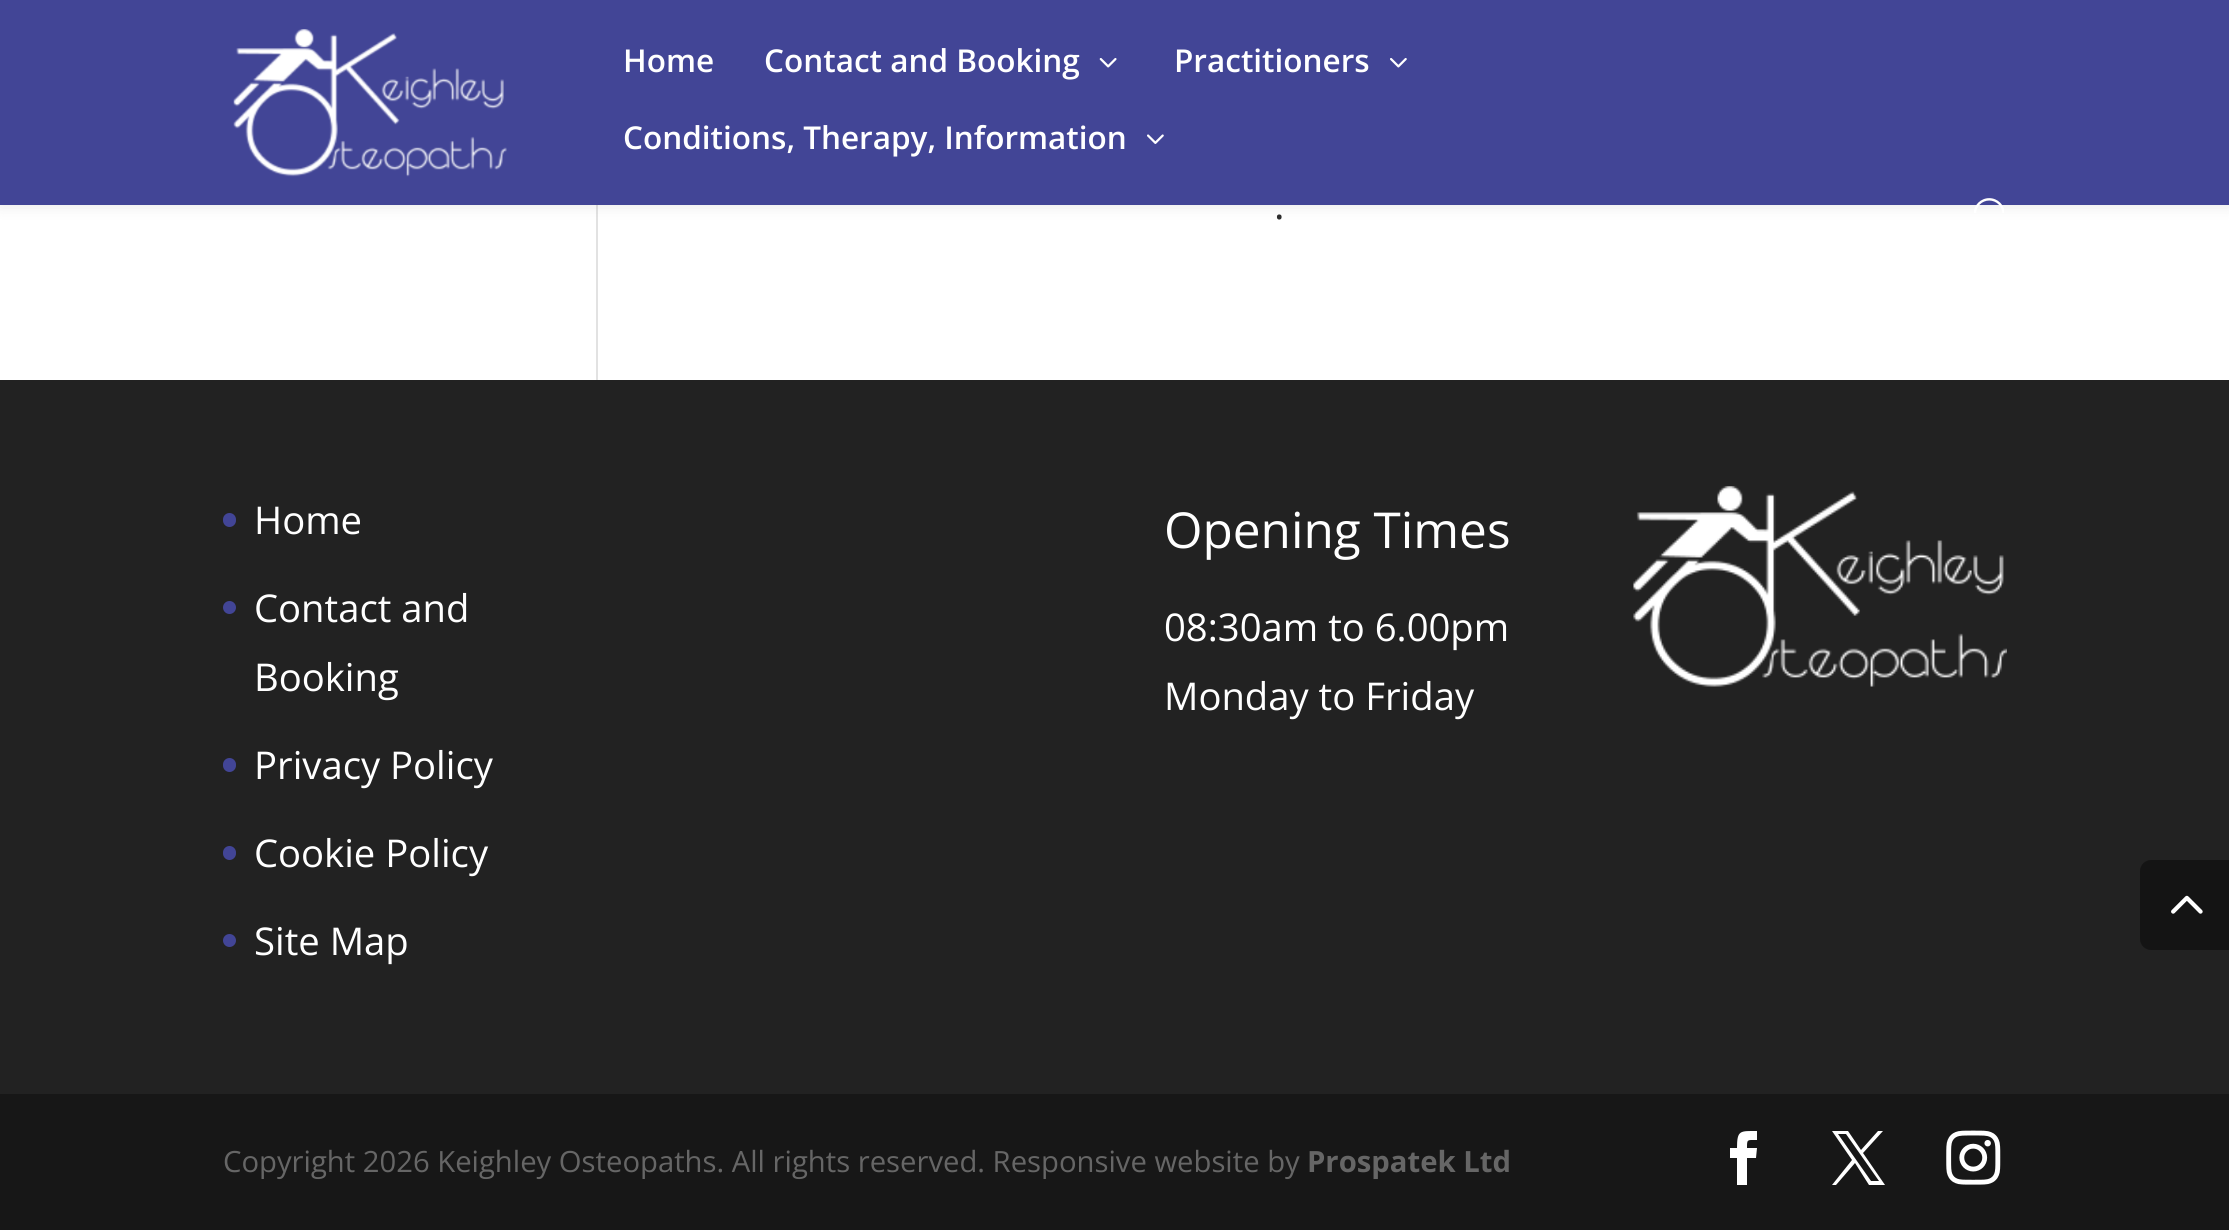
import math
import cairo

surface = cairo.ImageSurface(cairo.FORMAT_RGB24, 2229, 1230)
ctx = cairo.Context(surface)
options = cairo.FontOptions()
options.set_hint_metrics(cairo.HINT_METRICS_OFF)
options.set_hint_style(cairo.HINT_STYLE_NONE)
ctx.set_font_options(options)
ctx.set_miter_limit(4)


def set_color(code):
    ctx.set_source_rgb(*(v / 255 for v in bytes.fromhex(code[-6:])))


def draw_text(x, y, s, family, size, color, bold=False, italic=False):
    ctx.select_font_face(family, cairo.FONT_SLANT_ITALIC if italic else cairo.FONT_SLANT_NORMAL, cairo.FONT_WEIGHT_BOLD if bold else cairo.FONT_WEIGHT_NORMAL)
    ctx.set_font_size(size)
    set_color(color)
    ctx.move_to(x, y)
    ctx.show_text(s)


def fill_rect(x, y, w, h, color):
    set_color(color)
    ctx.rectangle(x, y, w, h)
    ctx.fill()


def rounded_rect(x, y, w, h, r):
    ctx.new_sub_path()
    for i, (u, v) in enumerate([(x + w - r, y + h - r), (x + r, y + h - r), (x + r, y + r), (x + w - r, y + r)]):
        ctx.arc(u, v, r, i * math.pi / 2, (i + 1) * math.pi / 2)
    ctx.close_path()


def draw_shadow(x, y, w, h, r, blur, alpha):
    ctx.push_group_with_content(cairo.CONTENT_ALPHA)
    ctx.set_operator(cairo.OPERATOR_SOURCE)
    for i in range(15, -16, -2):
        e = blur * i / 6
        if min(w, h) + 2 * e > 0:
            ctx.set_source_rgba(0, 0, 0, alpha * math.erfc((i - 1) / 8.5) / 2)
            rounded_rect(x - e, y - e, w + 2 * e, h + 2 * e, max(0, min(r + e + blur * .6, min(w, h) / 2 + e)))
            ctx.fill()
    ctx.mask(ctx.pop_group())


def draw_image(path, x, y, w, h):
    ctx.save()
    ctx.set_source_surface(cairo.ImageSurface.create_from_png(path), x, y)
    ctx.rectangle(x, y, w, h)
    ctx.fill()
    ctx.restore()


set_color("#ffffff")
ctx.paint()
fill_rect(596, 205, 2, 175, "#e2e2e2")
set_color("#000000")
draw_shadow(0, 0, 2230, 205, 0, 8, 0.1)
fill_rect(0, 0, 2229, 205, "#424596")
draw_image("assets/img1.png", 233, 29, 274, 148)
draw_text(623, 72, "Home", "Open Sans SemiBold", 31.5, "#ffffff")
draw_text(764, 72, "Contact and Booking", "Open Sans SemiBold", 31.5, "#ffffff")
draw_image("assets/img2.png", 1099, 58, 18, 10)
draw_text(1174, 72, "Practitioners", "Open Sans SemiBold", 31.5, "#ffffff")
draw_image("assets/img3.png", 1390, 58, 17, 10)
draw_text(623, 149, "Conditions, Therapy, Information", "Open Sans SemiBold", 31.5, "#ffffff")
draw_image("assets/img4.png", 1147, 134, 17, 10)
draw_image("assets/img5.png", 1974, 198, 30, 15)
draw_text(1274, 219, ".", "Open Sans", 40, "#2d2d2d")
fill_rect(0, 380, 2229, 714, "#222222")
set_color("#424596")
rounded_rect(223, 513, 13, 14, 6.5)
ctx.fill()
draw_text(254, 534, "Home", "Open Sans", 38.25, "#ffffff")
set_color("#424596")
ctx.new_path()
ctx.arc(229.5, 607.5, 6.5, 0, 2 * math.pi)
ctx.fill()
draw_text(254, 622, "Contact and", "Open Sans", 38.25, "#ffffff")
draw_text(254, 691, "Booking", "Open Sans", 38.25, "#ffffff")
set_color("#424596")
rounded_rect(223, 758, 13, 14, 6.5)
ctx.fill()
draw_text(254, 779, "Privacy Policy", "Open Sans", 38.25, "#ffffff")
set_color("#424596")
rounded_rect(223, 846, 13, 14, 6.5)
ctx.fill()
draw_text(254, 867, "Cookie Policy", "Open Sans", 38.25, "#ffffff")
set_color("#424596")
ctx.new_path()
ctx.arc(229.5, 940.5, 6.5, 0, 2 * math.pi)
ctx.fill()
draw_text(254, 955, "Site Map", "Open Sans", 38.25, "#ffffff")
draw_text(1164, 548, "Opening Times", "Open Sans", 49.5, "#ffffff")
draw_text(1164, 641, "08:30am to 6.00pm", "Open Sans", 38.25, "#ffffff")
draw_text(1164, 710, "Monday to Friday", "Open Sans", 38.25, "#ffffff")
draw_image("assets/img6.png", 1633, 486, 374, 201)
fill_rect(0, 1094, 2229, 136, "#171717")
draw_text(223, 1172, "Copyright 2026 Keighley Osteopaths. All rights reserved. Responsive website by", "Open Sans", 29.25, "#666666")
draw_text(1307, 1172, "Prospatek Ltd", "Open Sans", 29.25, "#666666", bold=True)
set_color("#ffffff")
ctx.new_path()
ctx.move_to(1737, 1185)
ctx.line_to(1747, 1185)
ctx.line_to(1747, 1158)
ctx.line_to(1756, 1158)
ctx.line_to(1757, 1148)
ctx.line_to(1747, 1148)
ctx.curve_to(1747, 1139, 1747, 1140, 1757, 1140)
ctx.line_to(1757, 1131)
ctx.curve_to(1740, 1131, 1737, 1130, 1737, 1148)
ctx.line_to(1730, 1148)
ctx.line_to(1730, 1158)
ctx.line_to(1737, 1158)
ctx.close_path()
ctx.fill()
ctx.new_path()
ctx.move_to(1832, 1131)
ctx.line_to(1852, 1160)
ctx.line_to(1832, 1185)
ctx.line_to(1836, 1185)
ctx.line_to(1855, 1163)
ctx.line_to(1869, 1185)
ctx.line_to(1885, 1185)
ctx.line_to(1863, 1153)
ctx.line_to(1883, 1131)
ctx.line_to(1878, 1131)
ctx.line_to(1861, 1150)
ctx.line_to(1848, 1131)
ctx.close_path()
ctx.move_to(1838, 1134)
ctx.line_to(1846, 1134)
ctx.line_to(1879, 1181)
ctx.line_to(1871, 1181)
ctx.close_path()
ctx.fill()
draw_image("assets/img7.png", 1946, 1130, 55, 55)
set_color("#141414")
ctx.new_path()
ctx.move_to(2151, 860)
ctx.line_to(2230, 860)
ctx.line_to(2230, 950)
ctx.line_to(2151, 950)
ctx.curve_to(2145, 950, 2140, 945, 2140, 939)
ctx.line_to(2140, 871)
ctx.curve_to(2140, 865, 2145, 860, 2151, 860)
ctx.close_path()
ctx.fill()
draw_image("assets/img8.png", 2171, 895, 32, 19)
surface.write_to_png("output.png")
